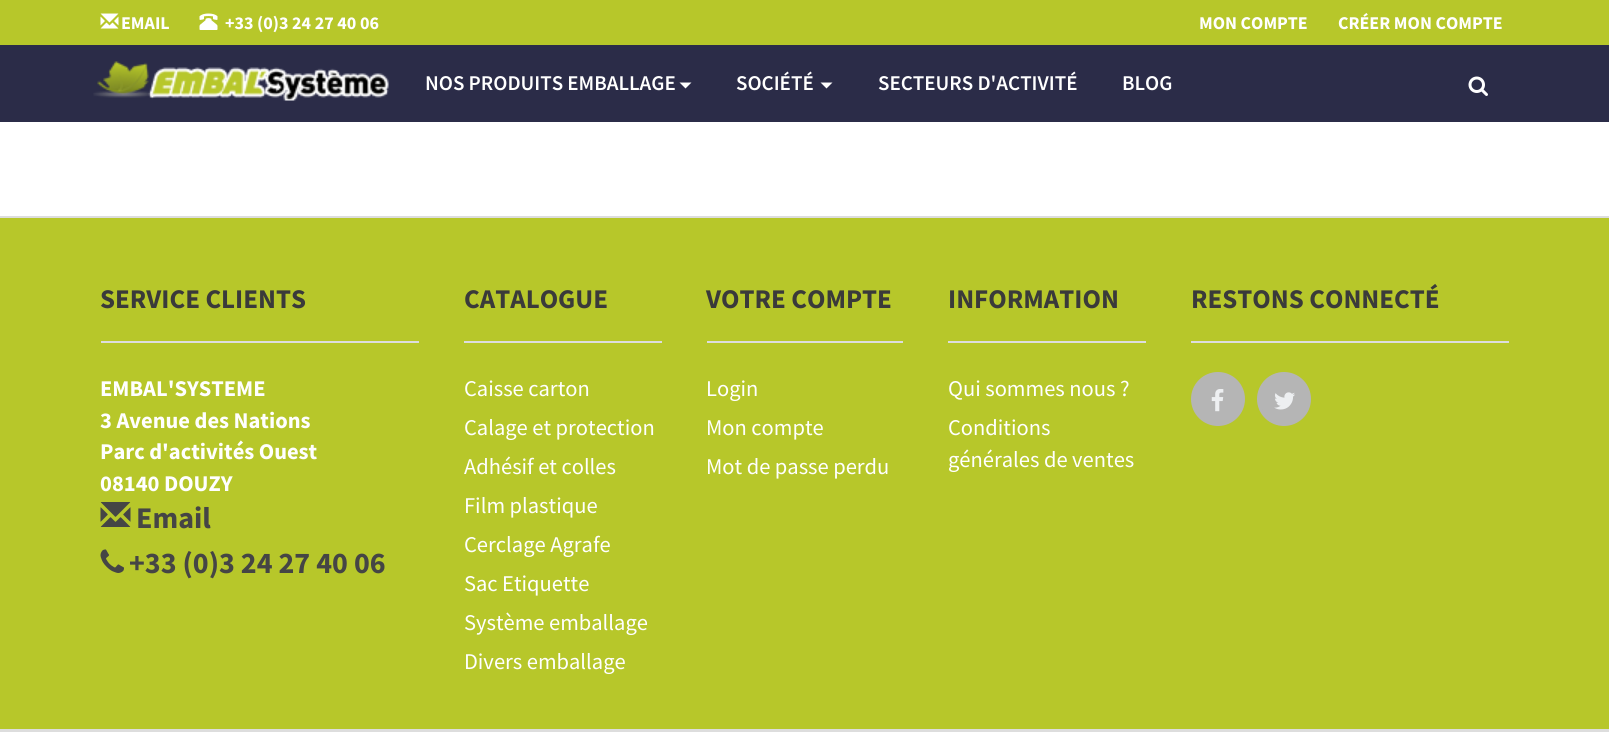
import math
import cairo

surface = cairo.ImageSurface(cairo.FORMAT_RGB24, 1609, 732)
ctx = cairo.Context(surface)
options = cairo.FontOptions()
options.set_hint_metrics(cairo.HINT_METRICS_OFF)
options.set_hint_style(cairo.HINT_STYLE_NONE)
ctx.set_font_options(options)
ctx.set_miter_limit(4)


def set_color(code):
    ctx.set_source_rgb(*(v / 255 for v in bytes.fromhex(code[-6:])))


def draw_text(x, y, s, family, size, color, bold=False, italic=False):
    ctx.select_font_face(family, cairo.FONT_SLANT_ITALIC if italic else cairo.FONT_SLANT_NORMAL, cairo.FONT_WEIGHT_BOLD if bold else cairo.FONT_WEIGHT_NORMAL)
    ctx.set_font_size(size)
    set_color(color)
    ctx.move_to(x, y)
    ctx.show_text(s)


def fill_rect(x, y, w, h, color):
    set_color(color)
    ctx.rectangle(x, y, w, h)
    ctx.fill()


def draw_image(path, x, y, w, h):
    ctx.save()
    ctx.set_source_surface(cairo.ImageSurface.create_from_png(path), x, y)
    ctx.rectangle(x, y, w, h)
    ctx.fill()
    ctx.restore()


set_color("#ffffff")
ctx.paint()
fill_rect(0, 45, 1609, 77, "#2b2c48")
fill_rect(0, 0, 1609, 45, "#b7c72a")
draw_image("assets/img1.png", 100, 13, 19, 16)
draw_text(121, 29, "EMAIL", "Source Sans Pro", 18, "#ffffff", bold=True)
draw_image("assets/img2.png", 199, 13, 19, 17)
draw_text(225, 29, "+33 (0)3 24 27 40 06", "Source Sans Pro", 18, "#ffffff", bold=True)
draw_text(1199, 29, "MON COMPTE", "Source Sans Pro", 18, "#ffffff", bold=True)
draw_text(1338, 29, "CRÉER MON COMPTE", "Source Sans Pro", 18, "#ffffff", bold=True)
draw_image("assets/img3.png", 93, 61, 296, 40)
draw_text(425, 90, "NOS PRODUITS EMBALLAGE", "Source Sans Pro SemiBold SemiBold", 21, "#ffffff")
ctx.new_path()
ctx.move_to(679.5, 82.5)
ctx.line_to(691.5, 82.5)
ctx.line_to(685.5, 88.5)
ctx.close_path()
ctx.fill()
draw_text(736, 90, "SOCIÉTÉ", "Source Sans Pro SemiBold SemiBold", 21, "#ffffff")
ctx.new_path()
ctx.move_to(820.5, 82.5)
ctx.line_to(832.5, 82.5)
ctx.line_to(826.5, 88.5)
ctx.close_path()
ctx.fill()
draw_text(878, 90, "SECTEURS D'ACTIVITÉ", "Source Sans Pro SemiBold SemiBold", 21, "#ffffff")
draw_text(1122, 90, "BLOG", "Source Sans Pro SemiBold SemiBold", 21, "#ffffff")
draw_image("assets/img4.png", 1468, 76, 20, 20)
fill_rect(0, 218, 1609, 511, "#b7c72a")
fill_rect(0, 216, 1609, 2, "#dddddd")
fill_rect(0, 729, 1609, 3, "#dddddd")
fill_rect(101, 341, 318, 2, "#dddddd")
draw_text(100, 308, "SERVICE CLIENTS", "Source Sans Pro", 27, "#3a3a3a", bold=True)
draw_text(100, 396, "EMBAL'SYSTEME", "Source Sans Pro", 22.5, "#ffffff", bold=True)
draw_text(100, 428, "3 Avenue des Nations", "Source Sans Pro", 22.5, "#ffffff", bold=True)
draw_text(100, 459, "Parc d'activités Ouest", "Source Sans Pro", 22.5, "#ffffff", bold=True)
draw_text(100, 491, "08140 DOUZY", "Source Sans Pro", 22.5, "#ffffff", bold=True)
draw_image("assets/img5.png", 100, 502, 31, 25)
draw_text(136, 528, "Email", "Source Sans Pro", 30, "#454545", bold=True)
draw_image("assets/img6.png", 100, 549, 24, 24)
draw_text(129, 573, "+33 (0)3 24 27 40 06", "Source Sans Pro", 30, "#454545", bold=True)
fill_rect(464, 341, 198, 2, "#dddddd")
draw_text(464, 308, "CATALOGUE", "Source Sans Pro", 27, "#3a3a3a", bold=True)
draw_text(464, 396, "Caisse carton", "Source Sans Pro", 22.5, "#ffffff")
draw_text(464, 435, "Calage et protection", "Source Sans Pro", 22.5, "#ffffff")
draw_text(464, 474, "Adhésif et colles", "Source Sans Pro", 22.5, "#ffffff")
draw_text(464, 513, "Film plastique", "Source Sans Pro", 22.5, "#ffffff")
draw_text(464, 552, "Cerclage Agrafe", "Source Sans Pro", 22.5, "#ffffff")
draw_text(464, 591, "Sac Etiquette", "Source Sans Pro", 22.5, "#ffffff")
draw_text(464, 630, "Système emballage", "Source Sans Pro", 22.5, "#ffffff")
draw_text(464, 669, "Divers emballage", "Source Sans Pro", 22.5, "#ffffff")
fill_rect(707, 341, 196, 2, "#dddddd")
draw_text(706, 308, "VOTRE COMPTE", "Source Sans Pro", 27, "#3a3a3a", bold=True)
draw_text(706, 396, "Login", "Source Sans Pro", 22.5, "#ffffff")
draw_text(706, 435, "Mon compte", "Source Sans Pro", 22.5, "#ffffff")
draw_text(706, 474, "Mot de passe perdu", "Source Sans Pro", 22.5, "#ffffff")
fill_rect(948, 341, 198, 2, "#dddddd")
draw_text(948, 308, "INFORMATION", "Source Sans Pro", 27, "#3a3a3a", bold=True)
draw_text(948, 396, "Qui sommes nous ?", "Source Sans Pro", 22.5, "#ffffff")
draw_text(948, 435, "Conditions", "Source Sans Pro", 22.5, "#ffffff")
draw_text(948, 467, "générales de ventes", "Source Sans Pro", 22.5, "#ffffff")
fill_rect(1191, 341, 318, 2, "#dddddd")
draw_text(1191, 308, "RESTONS CONNECTÉ", "Source Sans Pro", 27, "#3a3a3a", bold=True)
set_color("#b5b5b5")
ctx.new_path()
ctx.arc(1218, 399, 25.5, 0, 2 * math.pi)
ctx.fill_preserve()
ctx.set_line_width(3)
ctx.stroke()
draw_image("assets/img7.png", 1211, 389, 13, 23)
ctx.arc(1284, 399, 25.5, 0, 2 * math.pi)
ctx.fill_preserve()
ctx.stroke()
draw_image("assets/img8.png", 1274, 392, 21, 18)
surface.write_to_png("output.png")
